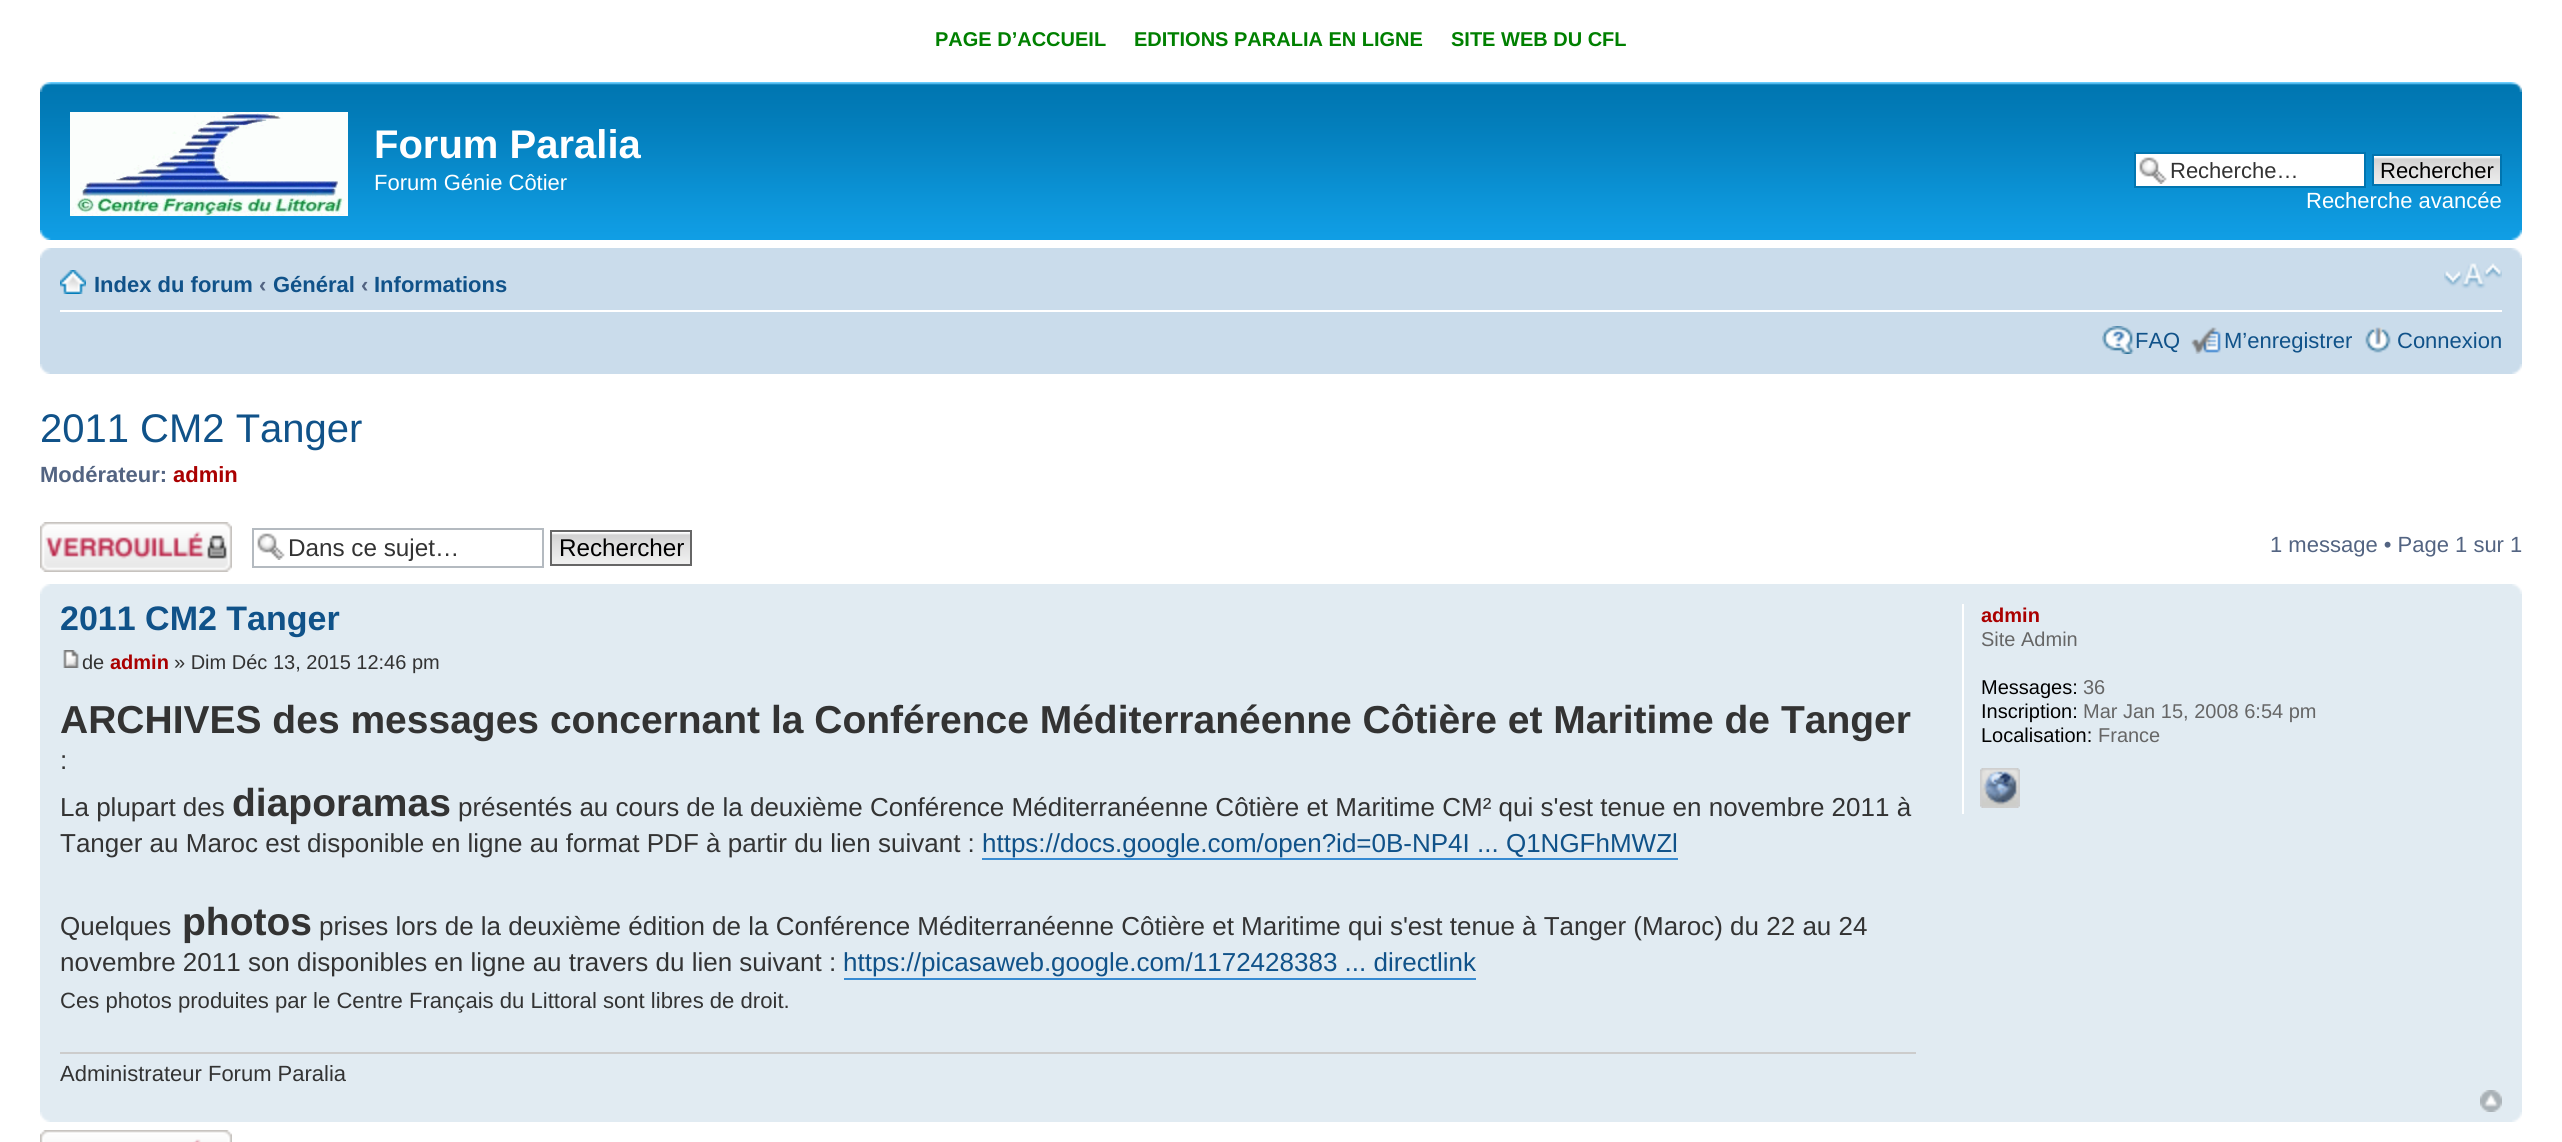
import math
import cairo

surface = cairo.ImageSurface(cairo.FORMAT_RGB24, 2562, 1142)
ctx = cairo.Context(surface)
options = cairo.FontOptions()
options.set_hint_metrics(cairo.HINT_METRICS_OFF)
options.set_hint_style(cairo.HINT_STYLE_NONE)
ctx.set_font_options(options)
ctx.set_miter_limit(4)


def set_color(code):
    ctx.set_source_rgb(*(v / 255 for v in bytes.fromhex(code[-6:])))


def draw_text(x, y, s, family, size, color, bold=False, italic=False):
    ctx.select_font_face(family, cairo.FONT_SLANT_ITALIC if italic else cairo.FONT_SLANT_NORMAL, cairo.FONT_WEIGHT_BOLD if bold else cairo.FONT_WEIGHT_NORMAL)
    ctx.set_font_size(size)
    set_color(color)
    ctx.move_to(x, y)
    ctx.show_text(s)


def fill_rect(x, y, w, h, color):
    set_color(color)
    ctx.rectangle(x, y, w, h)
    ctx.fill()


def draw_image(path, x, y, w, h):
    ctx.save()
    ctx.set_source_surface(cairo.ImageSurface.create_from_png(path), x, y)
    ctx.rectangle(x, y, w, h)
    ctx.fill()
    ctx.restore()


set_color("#ffffff")
ctx.paint()
draw_text(935, 46, "PAGE D’ACCUEIL", "Liberation Sans", 20, "#008000", bold=True)
draw_text(1134, 46, "EDITIONS PARALIA EN LIGNE", "Liberation Sans", 20, "#008000", bold=True)
draw_text(1451, 46, "SITE WEB DU CFL", "Liberation Sans", 20, "#008000", bold=True)
draw_image("assets/img1.png", 40, 82, 2482, 158)
draw_image("assets/img2.png", 40, 82, 11, 10)
draw_image("assets/img3.png", 2511, 82, 11, 10)
draw_image("assets/img4.png", 70, 112, 278, 104)
draw_text(374, 158, "Forum Paralia", "Liberation Sans", 40, "#ffffff", bold=True)
draw_text(374, 190, "Forum Génie Côtier", "Liberation Sans", 22, "#ffffff")
fill_rect(2136, 154, 228, 32, "#ffffff")
draw_image("assets/img5.png", 2139, 157, 28, 27)
ctx.rectangle(2135, 153, 230, 34)
set_color("#0075b0")
ctx.stroke()
draw_text(2170, 178, "Recherche…", "Liberation Sans", 22, "#333333")
draw_image("assets/img6.png", 2374, 156, 126, 28)
ctx.rectangle(2373, 155, 128, 30)
set_color("#0075b0")
ctx.stroke()
draw_text(2380, 178, "Rechercher", "Liberation Sans", 22, "#000000")
draw_text(2306, 208, "Recherche avancée", "Liberation Sans", 22, "#ffffff")
draw_image("assets/img7.png", 40, 230, 11, 10)
draw_image("assets/img8.png", 2511, 230, 11, 10)
fill_rect(40, 248, 2482, 126, "#cadceb")
draw_image("assets/img9.png", 40, 248, 11, 10)
draw_image("assets/img10.png", 2511, 248, 11, 10)
fill_rect(60, 310, 2442, 2, "#ffffff")
draw_image("assets/img11.png", 60, 270, 26, 24)
draw_text(94, 292, "Index du forum", "Liberation Sans", 22, "#105289", bold=True)
draw_text(259, 292, "‹", "Liberation Sans", 22, "#536482", bold=True)
draw_text(273, 292, "Général", "Liberation Sans", 22, "#105289", bold=True)
draw_text(361, 292, "‹", "Liberation Sans", 22, "#536482", bold=True)
draw_text(374, 292, "Informations", "Liberation Sans", 22, "#105289", bold=True)
draw_image("assets/img12.png", 2444, 263, 58, 26)
draw_image("assets/img13.png", 2102, 326, 32, 28)
draw_text(2135, 348, "FAQ", "Liberation Sans", 22, "#105289")
draw_image("assets/img14.png", 2191, 327, 30, 27)
draw_text(2224, 348, "M’enregistrer", "Liberation Sans", 22, "#105289")
draw_image("assets/img15.png", 2365, 327, 26, 26)
draw_text(2397, 348, "Connexion", "Liberation Sans", 22, "#105289")
draw_image("assets/img16.png", 40, 364, 10, 10)
draw_image("assets/img17.png", 2512, 364, 10, 10)
draw_text(40, 442, "2011 CM2 Tanger", "Liberation Sans", 40, "#105289")
draw_text(40, 482, "Modérateur:", "Liberation Sans", 22, "#536482", bold=True)
draw_text(173, 482, "admin", "Liberation Sans", 22, "#aa0000", bold=True)
draw_image("assets/img18.png", 40, 522, 192, 50)
draw_image("assets/img5.png", 257, 533, 28, 27)
ctx.rectangle(253, 529, 290, 38)
set_color("#b4bac0")
ctx.stroke()
draw_text(288, 556, "Dans ce sujet…", "Liberation Sans", 24.25, "#333333")
draw_image("assets/img19.png", 552, 532, 138, 32)
ctx.rectangle(551, 531, 140, 34)
set_color("#666666")
ctx.stroke()
draw_text(559, 556, "Rechercher", "Liberation Sans", 24.25, "#000000")
draw_text(2270, 552, "1 message • Page 1 sur 1", "Liberation Sans", 22, "#536482")
fill_rect(40, 584, 2482, 538, "#e1ebf2")
draw_image("assets/img20.png", 40, 584, 10, 10)
draw_image("assets/img21.png", 2512, 584, 10, 10)
draw_text(60, 630, "2011 CM2 Tanger", "Liberation Sans", 34, "#105289", bold=True)
draw_image("assets/img22.png", 63, 650, 16, 18)
draw_text(82, 669, "de", "Liberation Sans", 20, "#333333")
draw_text(110, 669, "admin", "Liberation Sans", 20, "#aa0000", bold=True)
draw_text(174, 669, "» Dim Déc 13, 2015 12:46 pm", "Liberation Sans", 20, "#333333")
draw_text(60, 733, "ARCHIVES des messages concernant la Conférence Méditerranéenne Côtière et Maritime de Tanger", "Liberation Sans", 39, "#333333", bold=True)
draw_text(60, 769, ":", "Liberation Sans", 26, "#333333")
draw_text(60, 816, "La plupart des", "Liberation Sans", 26, "#333333")
draw_text(232, 816, "diaporamas", "Liberation Sans", 39, "#333333", bold=True)
draw_text(458, 816, "présentés au cours de la deuxième Conférence Méditerranéenne Côtière et Maritime CM² qui s'est tenue en novembre 2011 à", "Liberation Sans", 26, "#333333")
draw_text(60, 852, "Tanger au Maroc est disponible en ligne au format PDF à partir du lien suivant :", "Liberation Sans", 26, "#333333")
draw_text(982, 852, "https://docs.google.com/open?id=0B-NP4I ... Q1NGFhMWZl", "Liberation Sans", 26, "#105289")
fill_rect(982, 858, 696, 2, "#368ad2")
draw_text(60, 935, "Quelques", "Liberation Sans", 26, "#333333")
draw_text(182, 935, "photos", "Liberation Sans", 39, "#333333", bold=True)
draw_text(319, 935, "prises lors de la deuxième édition de la Conférence Méditerranéenne Côtière et Maritime qui s'est tenue à Tanger (Maroc) du 22 au 24", "Liberation Sans", 26, "#333333")
draw_text(60, 971, "novembre 2011 son disponibles en ligne au travers du lien suivant :", "Liberation Sans", 26, "#333333")
draw_text(843, 971, "https://picasaweb.google.com/1172428383 ... directlink", "Liberation Sans", 26, "#105289")
fill_rect(844, 978, 632, 2, "#368ad2")
draw_text(60, 1008, "Ces photos produites par le Centre Français du Littoral sont libres de droit.", "Liberation Sans", 22.1, "#333333")
fill_rect(60, 1052, 1856, 2, "#cccccc")
draw_text(60, 1081, "Administrateur Forum Paralia", "Liberation Sans", 22, "#333333")
fill_rect(1962, 604, 2, 210, "#ffffff")
draw_text(1981, 622, "admin", "Liberation Sans", 20, "#aa0000", bold=True)
draw_text(1981, 646, "Site Admin", "Liberation Sans", 20, "#666666")
draw_text(1981, 694, "Messages:", "Liberation Sans", 20, "#000000")
draw_text(2083, 694, "36", "Liberation Sans", 20, "#666666")
draw_text(1981, 718, "Inscription:", "Liberation Sans", 20, "#000000")
draw_text(2083, 718, "Mar Jan 15, 2008 6:54 pm", "Liberation Sans", 20, "#666666")
draw_text(1981, 742, "Localisation:", "Liberation Sans", 20, "#000000")
draw_text(2098, 742, "France", "Liberation Sans", 20, "#666666")
draw_image("assets/img23.png", 1980, 768, 40, 40)
draw_image("assets/img24.png", 1980, 768, 40, 40)
draw_image("assets/img25.png", 2480, 1090, 22, 22)
draw_image("assets/img26.png", 40, 1112, 10, 10)
draw_image("assets/img27.png", 2512, 1112, 10, 10)
draw_image("assets/img28.png", 40, 1130, 192, 12)
surface.write_to_png("output.png")
